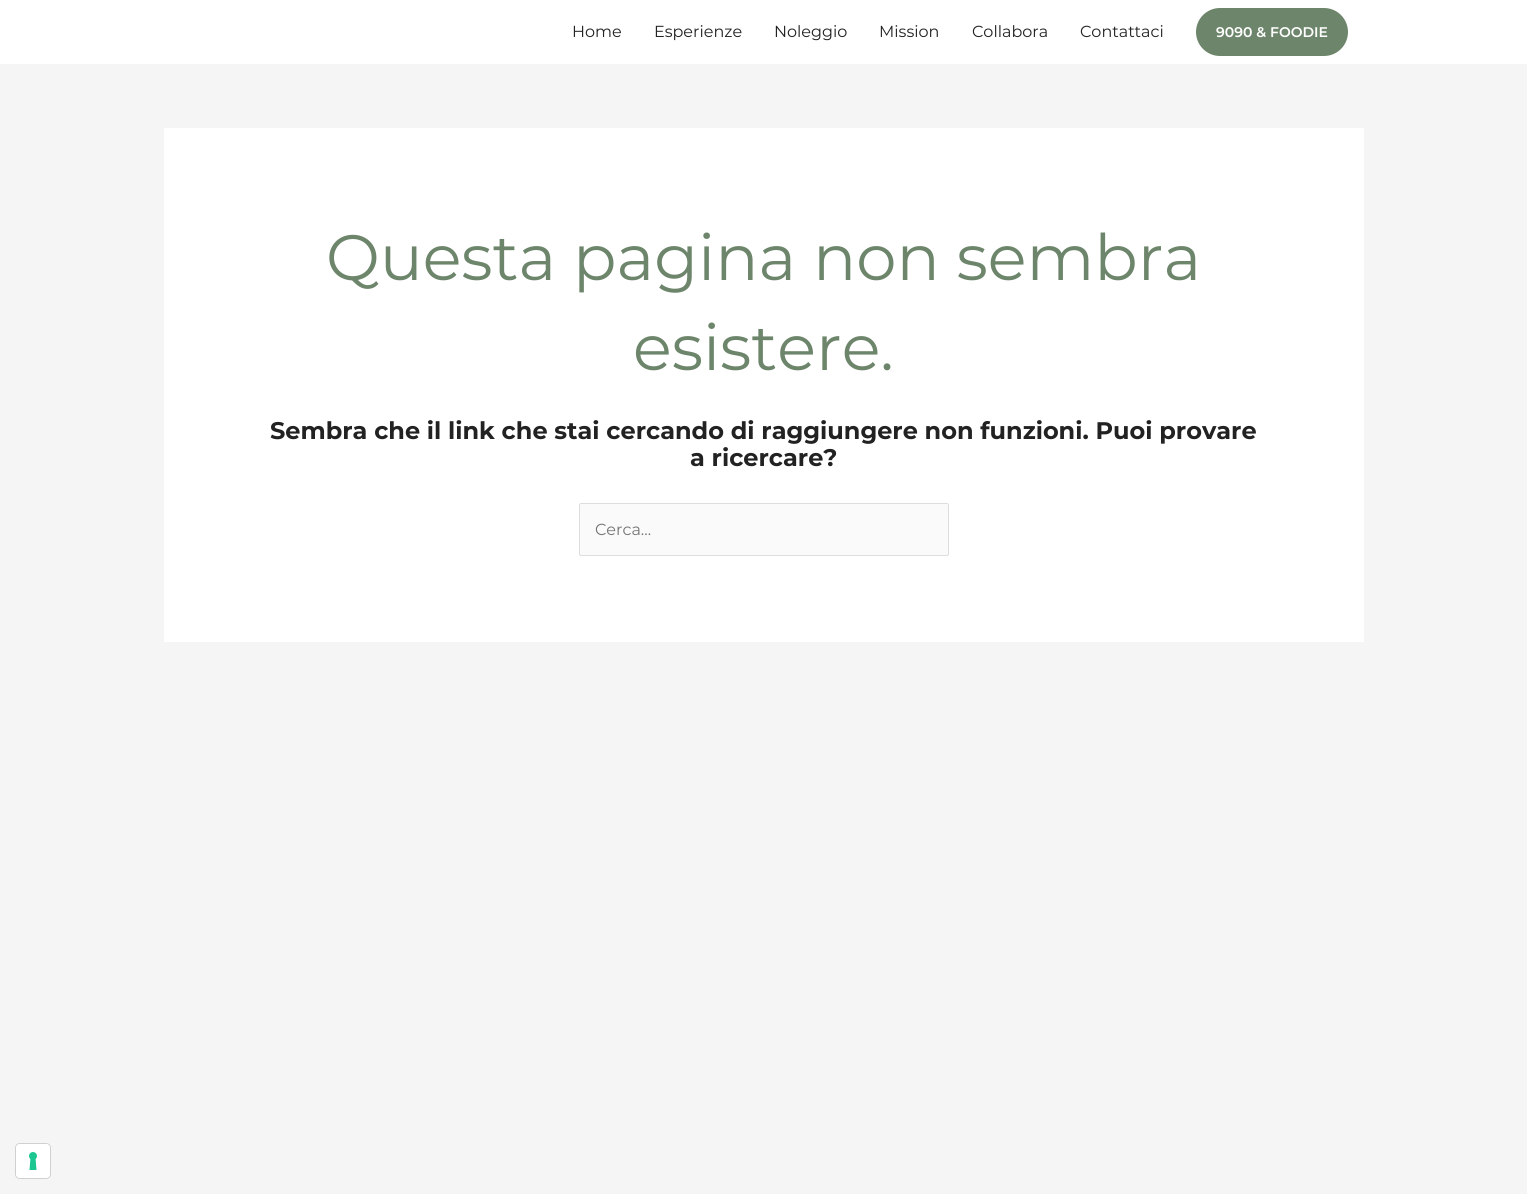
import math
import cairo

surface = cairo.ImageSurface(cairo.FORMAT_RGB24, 1527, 1194)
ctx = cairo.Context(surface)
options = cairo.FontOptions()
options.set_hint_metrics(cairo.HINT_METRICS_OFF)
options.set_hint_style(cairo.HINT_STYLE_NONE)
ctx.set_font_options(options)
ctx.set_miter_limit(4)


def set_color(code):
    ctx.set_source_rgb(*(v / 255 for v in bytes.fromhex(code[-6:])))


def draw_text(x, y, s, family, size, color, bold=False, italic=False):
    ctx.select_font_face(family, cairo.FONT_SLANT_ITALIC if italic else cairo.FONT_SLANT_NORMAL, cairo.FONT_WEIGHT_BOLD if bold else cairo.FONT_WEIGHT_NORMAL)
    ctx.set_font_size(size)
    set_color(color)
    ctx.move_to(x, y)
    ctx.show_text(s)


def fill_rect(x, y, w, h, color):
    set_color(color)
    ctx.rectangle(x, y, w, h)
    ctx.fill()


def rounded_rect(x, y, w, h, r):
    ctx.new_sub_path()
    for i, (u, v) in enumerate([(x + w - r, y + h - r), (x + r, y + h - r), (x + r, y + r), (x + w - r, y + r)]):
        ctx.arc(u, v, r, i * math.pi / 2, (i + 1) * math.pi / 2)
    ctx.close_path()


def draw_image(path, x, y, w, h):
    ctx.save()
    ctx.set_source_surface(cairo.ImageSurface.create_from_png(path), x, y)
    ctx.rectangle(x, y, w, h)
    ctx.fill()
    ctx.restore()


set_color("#f5f5f5")
ctx.paint()
fill_rect(0, 0, 1527, 64, "#ffffff")
draw_text(572, 37, "Home", "Montserrat", 16, "#222222")
draw_text(654, 37, "Esperienze", "Montserrat", 16, "#222222")
draw_text(774, 37, "Noleggio", "Montserrat", 16, "#222222")
draw_text(879, 37, "Mission", "Montserrat", 16, "#222222")
draw_text(972, 37, "Collabora", "Montserrat", 16, "#222222")
draw_text(1080, 37, "Contattaci", "Montserrat", 16, "#222222")
set_color("#6d866b")
rounded_rect(1196, 8, 152, 48, 24)
ctx.fill()
draw_text(1216, 37, "9090 & FOODIE", "Montserrat SemiBold", 14, "#ffffff")
fill_rect(164, 128, 1200, 514, "#ffffff")
draw_text(326, 280, "Questa pagina non sembra", "Montserrat", 64, "#6d866b")
draw_text(633, 370, "esistere.", "Montserrat", 64, "#6d866b")
draw_text(270, 439, "Sembra che il link che stai cercando di raggiungere non funzioni. Puoi provare", "Montserrat", 24, "#222222", bold=True)
draw_text(690, 466, "a ricercare?", "Montserrat", 24, "#222222", bold=True)
set_color("#fafafa")
rounded_rect(579.5, 503.5, 369, 52, 1.5)
ctx.fill_preserve()
set_color("#dddddd")
ctx.set_line_width(1)
ctx.stroke()
draw_text(595, 535, "Cerca...", "Montserrat", 16, "#757575")
rounded_rect(15.5, 1143.5, 35, 35, 4.5)
set_color("#d0d0d0")
ctx.stroke()
set_color("#ffffff")
rounded_rect(16, 1144, 34, 34, 4)
ctx.fill()
draw_image("assets/img1.png", 29, 1152, 8, 18)
surface.write_to_png("output.png")
